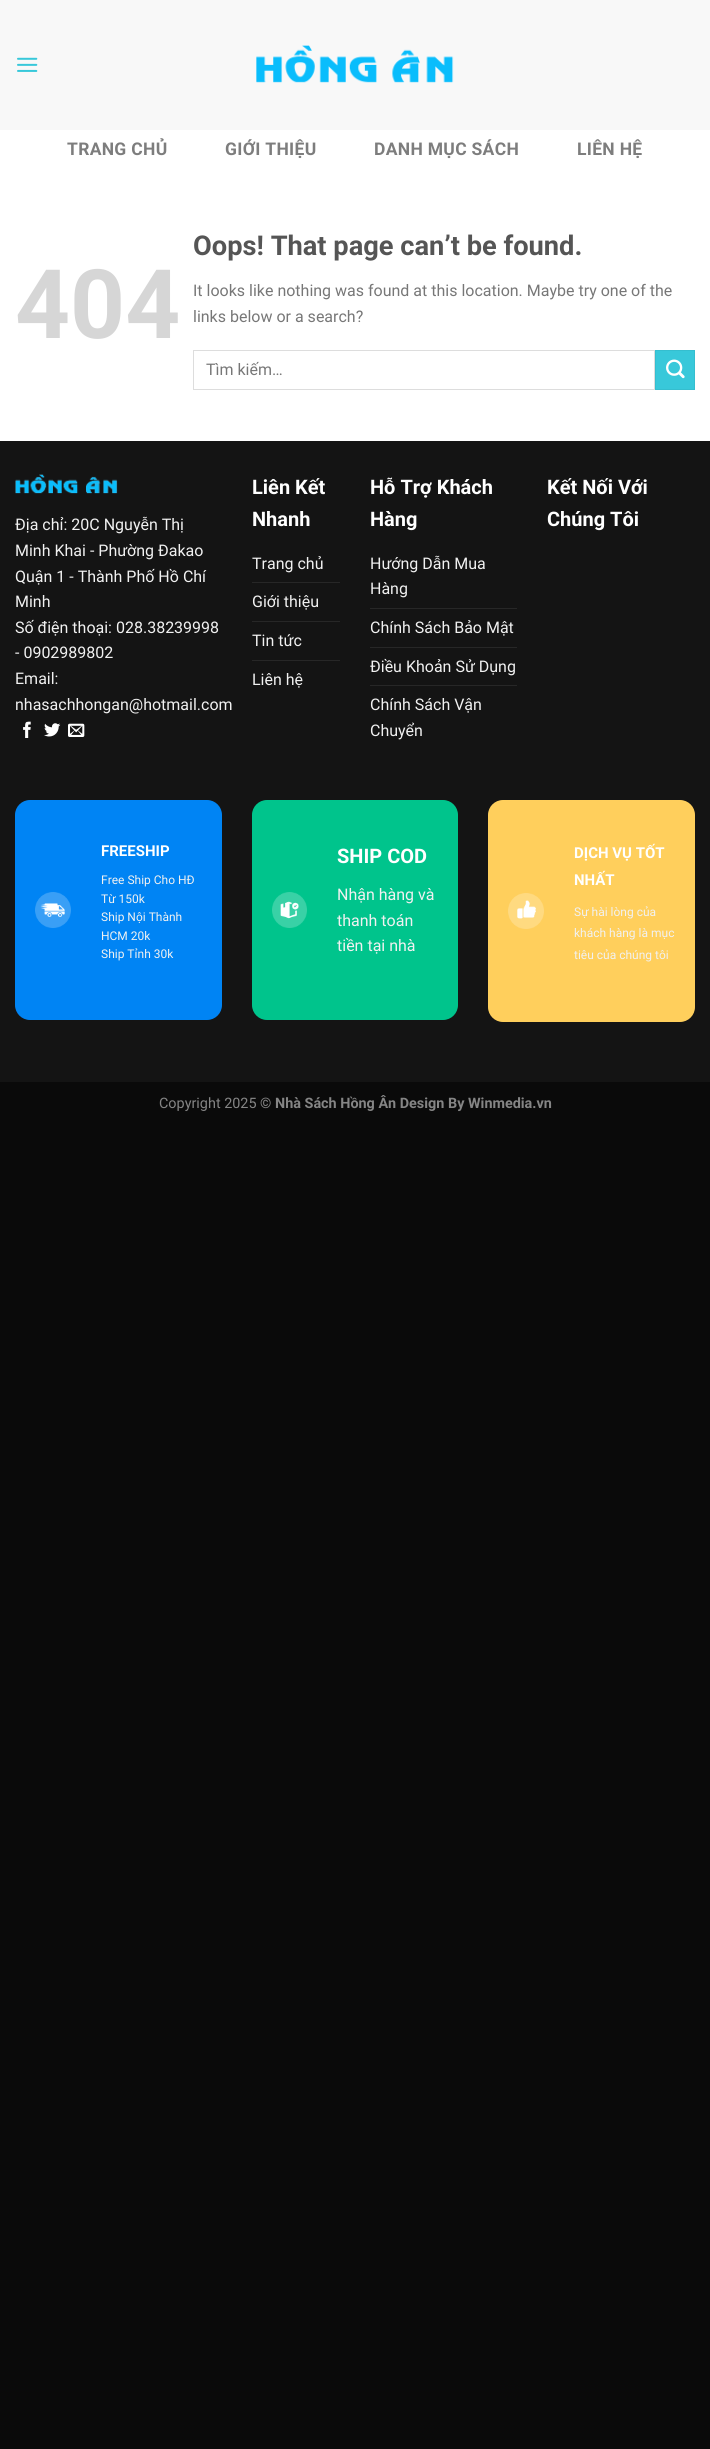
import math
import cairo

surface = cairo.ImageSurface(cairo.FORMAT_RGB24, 710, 2449)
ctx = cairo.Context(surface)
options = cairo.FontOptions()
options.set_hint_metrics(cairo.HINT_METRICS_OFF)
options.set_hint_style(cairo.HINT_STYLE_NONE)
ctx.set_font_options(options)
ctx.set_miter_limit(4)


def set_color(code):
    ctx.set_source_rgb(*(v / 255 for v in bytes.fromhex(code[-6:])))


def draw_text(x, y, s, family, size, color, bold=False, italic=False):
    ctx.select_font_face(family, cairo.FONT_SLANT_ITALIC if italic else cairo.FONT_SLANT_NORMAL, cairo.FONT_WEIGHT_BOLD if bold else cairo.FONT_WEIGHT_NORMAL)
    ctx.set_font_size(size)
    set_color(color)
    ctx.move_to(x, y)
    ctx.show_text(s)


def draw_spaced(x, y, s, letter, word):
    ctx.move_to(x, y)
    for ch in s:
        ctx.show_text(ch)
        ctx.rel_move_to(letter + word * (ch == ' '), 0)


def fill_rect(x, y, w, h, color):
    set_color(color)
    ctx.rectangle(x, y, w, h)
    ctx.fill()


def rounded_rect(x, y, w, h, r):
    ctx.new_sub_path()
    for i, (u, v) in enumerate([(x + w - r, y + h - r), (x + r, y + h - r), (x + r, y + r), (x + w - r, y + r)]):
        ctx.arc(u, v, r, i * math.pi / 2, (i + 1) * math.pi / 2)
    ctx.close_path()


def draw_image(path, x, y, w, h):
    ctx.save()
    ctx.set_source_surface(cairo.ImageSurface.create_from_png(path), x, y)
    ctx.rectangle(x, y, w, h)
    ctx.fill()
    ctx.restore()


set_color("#0a0a0a")
ctx.paint()
fill_rect(0, 130, 710, 311, "#ffffff")
fill_rect(0, 0, 710, 130, "#f8f8f8")
draw_image("assets/img1.png", 17, 57, 21, 15)
draw_image("assets/img2.png", 256, 45, 198, 38)
ctx.select_font_face("Roboto", cairo.FONT_SLANT_NORMAL, cairo.FONT_WEIGHT_BOLD)
ctx.set_font_size(17.5)
set_color("#7d7d7d")
draw_spaced(67, 155, "TRANG CHỦ", 0.3, 0)
draw_spaced(225, 155, "GIỚI THIỆU", 0.3, 0)
draw_spaced(374, 155, "DANH MỤC SÁCH", 0.3, 0)
draw_spaced(577, 155, "LIÊN HỆ", 0.3, 0)
draw_text(15, 338, "404", "Roboto", 96, "#d6d6d6", bold=True)
draw_text(193, 255, "Oops! That page can’t be found.", "Roboto", 27.25, "#555555", bold=True)
draw_text(193, 296, "It looks like nothing was found at this location. Maybe try one of the", "Roboto", 16, "#777777")
draw_text(193, 322, "links below or a search?", "Roboto", 16, "#777777")
ctx.rectangle(193.5, 350.5, 461, 39)
set_color("#dddddd")
ctx.set_line_width(1)
ctx.stroke()
draw_text(206, 375, "Tìm kiếm…", "Roboto", 16, "#777777")
set_color("#38c8da")
ctx.rectangle(655.5, 350.5, 39, 39)
ctx.fill_preserve()
set_color("#35becf")
ctx.stroke()
draw_image("assets/img3.png", 666, 359, 19, 20)
fill_rect(0, 441, 710, 641, "#141414")
draw_text(252, 494, "Liên Kết", "Roboto", 20, "#ffffff", bold=True)
draw_text(252, 526, "Nhanh", "Roboto", 20, "#ffffff", bold=True)
draw_text(252, 569, "Trang chủ", "Roboto", 16, "#f1f1f1")
fill_rect(252, 582, 88, 1, "#272727")
draw_text(252, 607, "Giới thiệu", "Roboto", 16, "#f1f1f1")
fill_rect(252, 621, 88, 1, "#272727")
draw_text(252, 646, "Tin tức", "Roboto", 16, "#f1f1f1")
fill_rect(252, 660, 88, 1, "#272727")
draw_text(252, 685, "Liên hệ", "Roboto", 16, "#f1f1f1")
draw_text(370, 494, "Hỗ Trợ Khách", "Roboto", 20, "#ffffff", bold=True)
draw_text(370, 526, "Hàng", "Roboto", 20, "#ffffff", bold=True)
draw_text(370, 569, "Hướng Dẫn Mua", "Roboto", 16, "#f1f1f1")
draw_text(370, 594, "Hàng", "Roboto", 16, "#f1f1f1")
fill_rect(370, 608, 147, 1, "#272727")
draw_text(370, 633, "Chính Sách Bảo Mật", "Roboto", 16, "#f1f1f1")
fill_rect(370, 647, 147, 1, "#272727")
draw_text(370, 672, "Điều Khoản Sử Dụng", "Roboto", 16, "#f1f1f1")
fill_rect(370, 685, 147, 1, "#272727")
draw_text(370, 710, "Chính Sách Vận", "Roboto", 16, "#f1f1f1")
draw_text(370, 736, "Chuyển", "Roboto", 16, "#f1f1f1")
draw_text(547, 494, "Kết Nối Với", "Roboto", 20, "#ffffff", bold=True)
draw_text(547, 526, "Chúng Tôi", "Roboto", 20, "#ffffff", bold=True)
draw_image("assets/img4.png", 15, 474, 103, 20)
draw_text(15, 530, "Địa chỉ: 20C Nguyễn Thị", "Roboto", 16, "#f1f1f1")
draw_text(15, 556, "Minh Khai - Phường Đakao", "Roboto", 16, "#f1f1f1")
draw_text(15, 582, "Quận 1 - Thành Phố Hồ Chí", "Roboto", 16, "#f1f1f1")
draw_text(15, 607, "Minh", "Roboto", 16, "#f1f1f1")
draw_text(15, 633, "Số điện thoại: 028.38239998", "Roboto", 16, "#f1f1f1")
draw_text(15, 658, "- 0902989802", "Roboto", 16, "#f1f1f1")
draw_text(15, 684, "Email:", "Roboto", 16, "#f1f1f1")
draw_text(15, 710, "nhasachhongan@hotmail.com", "Roboto", 16, "#f1f1f1")
draw_image("assets/img5.png", 23, 721, 8, 17)
draw_image("assets/img6.png", 44, 723, 17, 14)
draw_image("assets/img7.png", 68, 723, 17, 14)
set_color("#0084f4")
rounded_rect(15, 800, 207, 220, 15)
ctx.fill()
draw_image("assets/img8.png", 35, 892, 36, 36)
draw_text(101, 856, "FREESHIP", "Roboto", 15, "#ffffff", bold=True)
draw_text(101, 884, "Free Ship Cho HĐ", "Roboto", 12, "#f1f1f1")
draw_text(101, 903, "Từ 150k", "Roboto", 12, "#f1f1f1")
draw_text(101, 921, "Ship Nội Thành", "Roboto", 12, "#f1f1f1")
draw_text(101, 940, "HCM 20k", "Roboto", 12, "#f1f1f1")
draw_text(101, 958, "Ship Tỉnh 30k", "Roboto", 12, "#f1f1f1")
set_color("#00c48c")
rounded_rect(252, 800, 206, 220, 15)
ctx.fill()
draw_image("assets/img9.png", 272, 892, 35, 36)
draw_text(337, 863, "SHIP COD", "Roboto", 20, "#ffffff", bold=True)
draw_text(337, 900, "Nhận hàng và", "Roboto", 16, "#f1f1f1")
draw_text(337, 926, "thanh toán", "Roboto", 16, "#f1f1f1")
draw_text(337, 951, "tiền tại nhà", "Roboto", 16, "#f1f1f1")
set_color("#ffcf5c")
rounded_rect(488, 800, 207, 222, 15)
ctx.fill()
draw_image("assets/img10.png", 508, 893, 36, 36)
draw_text(574, 858, "DỊCH VỤ TỐT", "Roboto", 15, "#ffffff", bold=True)
draw_text(574, 885, "NHẤT", "Roboto", 15, "#ffffff", bold=True)
draw_text(574, 916, "Sự hài lòng của", "Roboto", 12, "#f1f1f1")
draw_text(574, 937, "khách hàng là mục", "Roboto", 12, "#f1f1f1")
draw_text(574, 959, "tiêu của chúng tôi", "Roboto", 12, "#f1f1f1")
draw_text(159, 1108, "Copyright 2025 ©", "Roboto", 14.4, "#858585")
draw_text(275, 1108, "Nhà Sách Hồng Ân Design By Winmedia.vn", "Roboto", 14.4, "#858585", bold=True)
surface.write_to_png("output.png")
